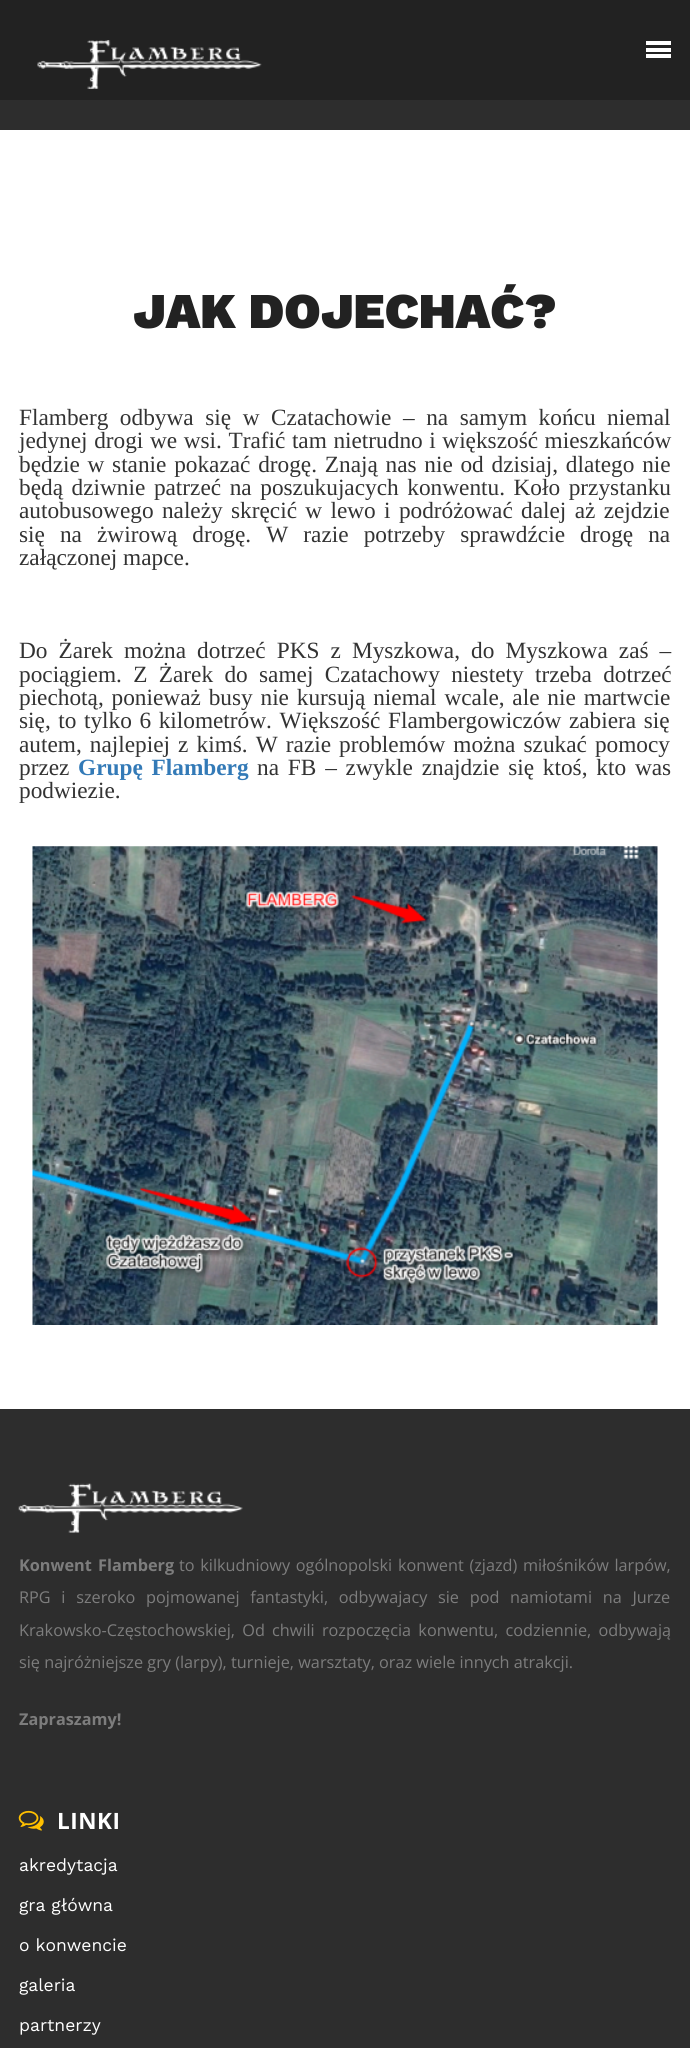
import math
import cairo

surface = cairo.ImageSurface(cairo.FORMAT_RGB24, 690, 2048)
ctx = cairo.Context(surface)
options = cairo.FontOptions()
options.set_hint_metrics(cairo.HINT_METRICS_OFF)
options.set_hint_style(cairo.HINT_STYLE_NONE)
ctx.set_font_options(options)
ctx.set_miter_limit(4)


def set_color(code):
    ctx.set_source_rgb(*(v / 255 for v in bytes.fromhex(code[-6:])))


def draw_text(x, y, s, family, size, color, bold=False, italic=False):
    ctx.select_font_face(family, cairo.FONT_SLANT_ITALIC if italic else cairo.FONT_SLANT_NORMAL, cairo.FONT_WEIGHT_BOLD if bold else cairo.FONT_WEIGHT_NORMAL)
    ctx.set_font_size(size)
    set_color(color)
    ctx.move_to(x, y)
    ctx.show_text(s)


def draw_spaced(x, y, s, letter, word):
    ctx.move_to(x, y)
    for ch in s:
        ctx.show_text(ch)
        ctx.rel_move_to(letter + word * (ch == ' '), 0)


def fill_rect(x, y, w, h, color):
    set_color(color)
    ctx.rectangle(x, y, w, h)
    ctx.fill()


def draw_image(path, x, y, w, h):
    ctx.save()
    ctx.set_source_surface(cairo.ImageSurface.create_from_png(path), x, y)
    ctx.rectangle(x, y, w, h)
    ctx.fill()
    ctx.restore()


set_color("#ffffff")
ctx.paint()
fill_rect(0, 100, 690, 30, "#2d2d2d")
fill_rect(0, 0, 690, 100, "#222222")
draw_image("assets/img1.png", 37, 40, 225, 49)
fill_rect(646, 48, 25, 4, "#ffffff")
fill_rect(646, 41, 25, 4, "#ffffff")
fill_rect(646, 54, 25, 4, "#ffffff")
draw_text(133, 328, "JAK DOJECHAĆ?", "Work Sans Black", 50, "#222222")
ctx.select_font_face("Liberation Serif")
ctx.set_font_size(23.3)
set_color("#333333")
draw_spaced(19, 425, "Flamberg odbywa się w Czatachowie – na samym końcu niemal", 0, 5.75)
draw_spaced(19, 448, "jedynej drogi we wsi. Trafić tam nietrudno i większość mieszkańców", 0, 0.75)
draw_spaced(19, 472, "będzie w stanie pokazać drogę. Znają nas nie od dzisiaj, dlatego nie", 0, 1.9)
draw_spaced(19, 495, "będą dziwnie patrzeć na poszukujacych konwentu. Koło przystanku", 0, 2.75)
draw_spaced(19, 518, "autobusowego należy skręcić w lewo i podróżować dalej aż zejdzie", 0, 2.5)
draw_spaced(19, 542, "się na żwirową drogę. W razie potrzeby sprawdźcie drogę na", 0, 9.25)
draw_text(19, 565, "załączonej mapce.", "Liberation Serif", 23.3, "#333333")
draw_spaced(19, 658, "Do Żarek można dotrzeć PKS z Myszkowa, do Myszkowa zaś –", 0, 5.25)
draw_spaced(19, 682, "pociągiem. Z Żarek do samej Czatachowy niestety trzeba dotrzeć", 0, 5.5)
draw_spaced(19, 705, "piechotą, ponieważ busy nie kursują niemal wcale, ale nie martwcie", 0, 2)
draw_spaced(19, 728, "się, to tylko 6 kilometrów. Większość Flambergowiczów zabiera się", 0, 1.75)
draw_spaced(19, 752, "autem, najlepiej z kimś. W razie problemów można szukać pomocy", 0, 2.25)
draw_text(19, 775, "przez", "Liberation Serif", 23.3, "#333333")
ctx.select_font_face("Liberation Serif", cairo.FONT_SLANT_NORMAL, cairo.FONT_WEIGHT_BOLD)
set_color("#337ab7")
draw_spaced(78, 775, "Grupę Flamberg", 0, 3)
ctx.select_font_face("Liberation Serif")
set_color("#333333")
draw_spaced(257, 775, "na FB – zwykle znajdzie się ktoś, kto was", 0, 3)
draw_text(19, 798, "podwiezie.", "Liberation Serif", 23.3, "#333333")
draw_image("assets/img2.png", 32, 846, 626, 479)
fill_rect(0, 1409, 690, 639, "#2d2d2d")
draw_image("assets/img3.png", 18, 1483, 225, 50)
ctx.select_font_face("Open Sans", cairo.FONT_SLANT_NORMAL, cairo.FONT_WEIGHT_BOLD)
ctx.set_font_size(16.25)
set_color("#7d7d7d")
draw_spaced(19, 1571, "Konwent Flamberg", 0, 2)
ctx.select_font_face("Open Sans")
draw_spaced(179, 1571, "to kilkudniowy ogólnopolski konwent (zjazd) miłośników larpów,", 0, 1.5)
draw_spaced(19, 1603, "RPG i szeroko pojmowanej fantastyki, odbywajacy sie pod namiotami na Jurze", 0, 6.5)
draw_spaced(19, 1636, "Krakowsko-Częstochowskiej, Od chwili rozpoczęcia konwentu, codziennie, odbywają", 0, 3)
draw_text(19, 1668, "się najróżniejsze gry (larpy), turnieje, warsztaty, oraz wiele innych atrakcji.", "Open Sans", 16.25, "#7d7d7d")
draw_text(19, 1725, "Zapraszamy!", "Open Sans", 16.25, "#7d7d7d", bold=True)
draw_image("assets/img4.png", 18, 1810, 26, 21)
ctx.set_font_size(22.5)
set_color("#ffffff")
draw_spaced(57, 1829, "LINKI", 0.5, 0)
draw_text(19, 1871, "akredytacja", "Work Sans", 17.5, "#ffffff")
draw_text(19, 1911, "gra główna", "Work Sans", 17.5, "#ffffff")
draw_text(19, 1951, "o konwencie", "Work Sans", 17.5, "#ffffff")
draw_text(19, 1991, "galeria", "Work Sans", 17.5, "#ffffff")
draw_text(19, 2031, "partnerzy", "Work Sans", 17.5, "#ffffff")
surface.write_to_png("output.png")
